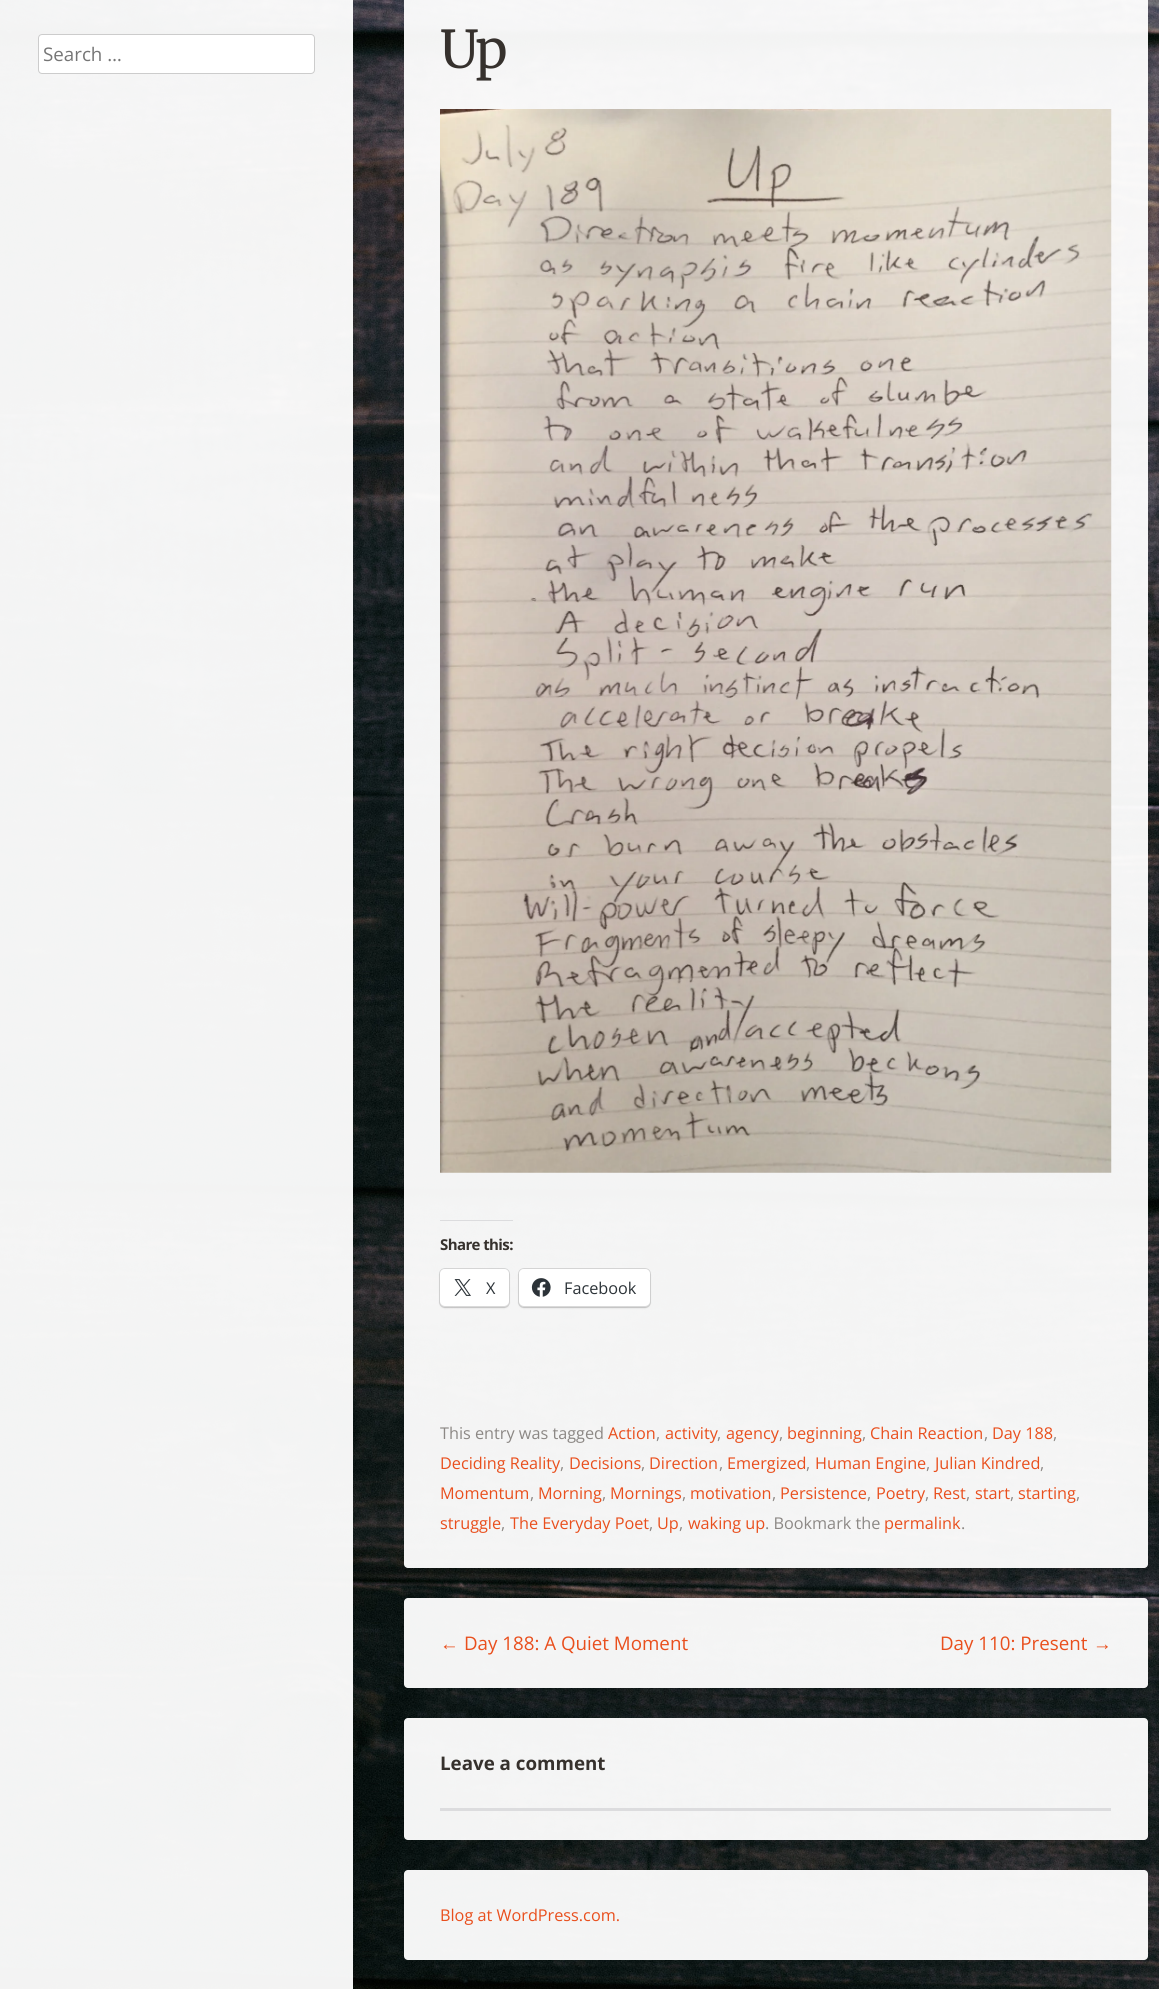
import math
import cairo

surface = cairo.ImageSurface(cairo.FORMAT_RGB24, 1159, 1989)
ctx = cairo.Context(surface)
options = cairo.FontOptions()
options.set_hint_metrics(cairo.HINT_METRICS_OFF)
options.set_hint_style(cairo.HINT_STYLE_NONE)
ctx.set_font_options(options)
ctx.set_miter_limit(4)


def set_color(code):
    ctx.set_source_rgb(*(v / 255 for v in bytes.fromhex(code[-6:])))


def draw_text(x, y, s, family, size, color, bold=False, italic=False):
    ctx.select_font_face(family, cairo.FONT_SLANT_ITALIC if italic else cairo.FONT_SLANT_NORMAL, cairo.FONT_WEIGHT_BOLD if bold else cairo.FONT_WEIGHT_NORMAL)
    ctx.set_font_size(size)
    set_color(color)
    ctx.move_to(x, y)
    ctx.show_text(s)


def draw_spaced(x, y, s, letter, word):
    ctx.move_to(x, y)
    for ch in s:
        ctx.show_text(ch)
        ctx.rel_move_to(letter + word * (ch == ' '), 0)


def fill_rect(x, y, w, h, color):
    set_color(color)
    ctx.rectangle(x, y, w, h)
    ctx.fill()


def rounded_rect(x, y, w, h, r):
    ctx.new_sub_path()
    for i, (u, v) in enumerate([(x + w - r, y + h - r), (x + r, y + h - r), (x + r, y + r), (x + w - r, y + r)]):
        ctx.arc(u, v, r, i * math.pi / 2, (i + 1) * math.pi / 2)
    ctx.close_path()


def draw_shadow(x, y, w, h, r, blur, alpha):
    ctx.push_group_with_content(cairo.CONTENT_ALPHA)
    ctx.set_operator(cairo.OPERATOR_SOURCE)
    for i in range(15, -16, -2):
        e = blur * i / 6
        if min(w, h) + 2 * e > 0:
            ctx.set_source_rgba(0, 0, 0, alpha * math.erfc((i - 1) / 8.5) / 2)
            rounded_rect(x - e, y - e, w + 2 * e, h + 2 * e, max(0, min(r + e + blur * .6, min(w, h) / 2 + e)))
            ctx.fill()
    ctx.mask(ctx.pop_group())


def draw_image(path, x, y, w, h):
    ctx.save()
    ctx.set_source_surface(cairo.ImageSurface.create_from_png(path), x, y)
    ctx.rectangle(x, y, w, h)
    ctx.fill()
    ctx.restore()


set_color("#ffffff")
ctx.paint()
draw_image("assets/img1.png", 0, 0, 1159, 1989)
ctx.set_source_rgba(1, 1, 1, 0.95)
ctx.rectangle(0, 0, 353, 1989)
ctx.fill()
rounded_rect(404, -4, 744, 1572, 4)
ctx.fill()
ctx.select_font_face("Merriweather Light")
ctx.set_font_size(52)
set_color("#36312d")
draw_spaced(440, 68, "Up", -3, 0)
draw_image("assets/img2.png", 440, 109, 672, 1064)
fill_rect(440, 1220, 73, 1, "#dcdcde")
ctx.select_font_face("Open Sans", cairo.FONT_SLANT_NORMAL, cairo.FONT_WEIGHT_BOLD)
ctx.set_font_size(15)
set_color("#36312d")
draw_spaced(440, 1250, "Share this:", -0.6, 0)
rounded_rect(439.5, 1268.5, 70, 39, 5.5)
ctx.set_source_rgba(0, 0, 0, 0.12)
ctx.set_line_width(1)
ctx.stroke()
set_color("#000000")
draw_shadow(440, 1270, 69, 38, 5, 1, 0.12)
set_color("#ffffff")
rounded_rect(440, 1269, 69, 37, 5)
ctx.fill()
draw_image("assets/img3.png", 454, 1279, 17, 17)
draw_text(486, 1294, "X", "Open Sans", 16.25, "#2c3338")
rounded_rect(518.5, 1268.5, 132, 39, 5.5)
set_color("#d7d7d7")
ctx.stroke()
set_color("#000000")
draw_shadow(519, 1270, 131, 38, 5, 1, 0.12)
set_color("#ffffff")
rounded_rect(519, 1269, 131, 37, 5)
ctx.fill()
draw_image("assets/img4.png", 531, 1278, 20, 19)
draw_text(564, 1294, "Facebook", "Open Sans", 16.25, "#2c3338")
draw_text(440, 1439, "This entry was tagged", "Open Sans", 16.25, "#8c8885")
draw_text(608, 1439, "Action", "Open Sans", 16.25, "#e94f1d")
draw_text(656, 1439, ",", "Open Sans", 16.25, "#8c8885")
draw_text(665, 1439, "activity", "Open Sans", 16.25, "#e94f1d")
draw_text(717, 1439, ",", "Open Sans", 16.25, "#8c8885")
draw_text(726, 1439, "agency", "Open Sans", 16.25, "#e94f1d")
draw_text(779, 1439, ",", "Open Sans", 16.25, "#8c8885")
draw_text(787, 1439, "beginning", "Open Sans", 16.25, "#e94f1d")
draw_text(862, 1439, ",", "Open Sans", 16.25, "#8c8885")
draw_text(870, 1439, "Chain Reaction", "Open Sans", 16.25, "#e94f1d")
draw_text(984, 1439, ",", "Open Sans", 16.25, "#8c8885")
draw_text(992, 1439, "Day 188", "Open Sans", 16.25, "#e94f1d")
draw_text(1053, 1439, ",", "Open Sans", 16.25, "#8c8885")
draw_text(440, 1469, "Deciding Reality", "Open Sans", 16.25, "#e94f1d")
draw_text(560, 1469, ",", "Open Sans", 16.25, "#8c8885")
draw_text(569, 1469, "Decisions", "Open Sans", 16.25, "#e94f1d")
draw_text(641, 1469, ",", "Open Sans", 16.25, "#8c8885")
draw_text(649, 1469, "Direction", "Open Sans", 16.25, "#e94f1d")
draw_text(719, 1469, ",", "Open Sans", 16.25, "#8c8885")
draw_text(727, 1469, "Emergized", "Open Sans", 16.25, "#e94f1d")
draw_text(806, 1469, ",", "Open Sans", 16.25, "#8c8885")
draw_text(815, 1469, "Human Engine", "Open Sans", 16.25, "#e94f1d")
draw_text(926, 1469, ",", "Open Sans", 16.25, "#8c8885")
draw_text(935, 1469, "Julian Kindred", "Open Sans", 16.25, "#e94f1d")
draw_text(1040, 1469, ",", "Open Sans", 16.25, "#8c8885")
draw_text(440, 1499, "Momentum", "Open Sans", 16.25, "#e94f1d")
draw_text(530, 1499, ",", "Open Sans", 16.25, "#8c8885")
draw_text(538, 1499, "Morning", "Open Sans", 16.25, "#e94f1d")
draw_text(602, 1499, ",", "Open Sans", 16.25, "#8c8885")
draw_text(610, 1499, "Mornings", "Open Sans", 16.25, "#e94f1d")
draw_text(682, 1499, ",", "Open Sans", 16.25, "#8c8885")
draw_text(690, 1499, "motivation", "Open Sans", 16.25, "#e94f1d")
draw_text(772, 1499, ",", "Open Sans", 16.25, "#8c8885")
draw_text(780, 1499, "Persistence", "Open Sans", 16.25, "#e94f1d")
draw_text(867, 1499, ",", "Open Sans", 16.25, "#8c8885")
draw_text(876, 1499, "Poetry", "Open Sans", 16.25, "#e94f1d")
draw_text(925, 1499, ",", "Open Sans", 16.25, "#8c8885")
draw_text(933, 1499, "Rest", "Open Sans", 16.25, "#e94f1d")
draw_text(966, 1499, ",", "Open Sans", 16.25, "#8c8885")
draw_text(975, 1499, "start", "Open Sans", 16.25, "#e94f1d")
draw_text(1010, 1499, ",", "Open Sans", 16.25, "#8c8885")
draw_text(1018, 1499, "starting", "Open Sans", 16.25, "#e94f1d")
draw_text(1076, 1499, ",", "Open Sans", 16.25, "#8c8885")
draw_text(440, 1529, "struggle", "Open Sans", 16.25, "#e94f1d")
draw_text(501, 1529, ",", "Open Sans", 16.25, "#8c8885")
draw_text(510, 1529, "The Everyday Poet", "Open Sans", 16.25, "#e94f1d")
draw_text(649, 1529, ",", "Open Sans", 16.25, "#8c8885")
draw_text(657, 1529, "Up", "Open Sans", 16.25, "#e94f1d")
draw_text(679, 1529, ",", "Open Sans", 16.25, "#8c8885")
draw_text(688, 1529, "waking up", "Open Sans", 16.25, "#e94f1d")
draw_text(765, 1529, ". Bookmark the", "Open Sans", 16.25, "#8c8885")
draw_text(884, 1529, "permalink", "Open Sans", 16.25, "#e94f1d")
draw_text(961, 1529, ".", "Open Sans", 16.25, "#8c8885")
ctx.set_source_rgba(1, 1, 1, 0.95)
rounded_rect(404, 1598, 744, 90, 4)
ctx.fill()
draw_text(440, 1650, "←", "Liberation Sans", 18.75, "#e94f1d")
draw_text(464, 1650, "Day 188: A Quiet Moment", "Open Sans", 18.75, "#e94f1d")
draw_text(940, 1650, "Day 110: Present", "Open Sans", 18.75, "#e94f1d")
draw_text(1093, 1650, "→", "Liberation Sans", 18.75, "#e94f1d")
ctx.set_source_rgba(1, 1, 1, 0.95)
rounded_rect(404, 1718, 744, 122, 4)
ctx.fill()
draw_text(440, 1770, "Leave a comment", "Open Sans", 18.75, "#36312d", bold=True)
fill_rect(440, 1808, 671, 3, "#dcdcde")
set_color("#ffffff")
rounded_rect(38, 34, 277, 40, 4)
ctx.fill()
rounded_rect(38.5, 34.5, 276, 39, 3.5)
ctx.set_source_rgba(0, 0, 0, 0.2)
ctx.stroke()
draw_text(43, 61, "Search …", "Open Sans", 18.75, "#757575")
ctx.set_source_rgba(1, 1, 1, 0.95)
rounded_rect(404, 1870, 744, 90, 4)
ctx.fill()
draw_text(440, 1921, "Blog at WordPress.com.", "Open Sans", 16.25, "#e94f1d")
surface.write_to_png("output.png")
